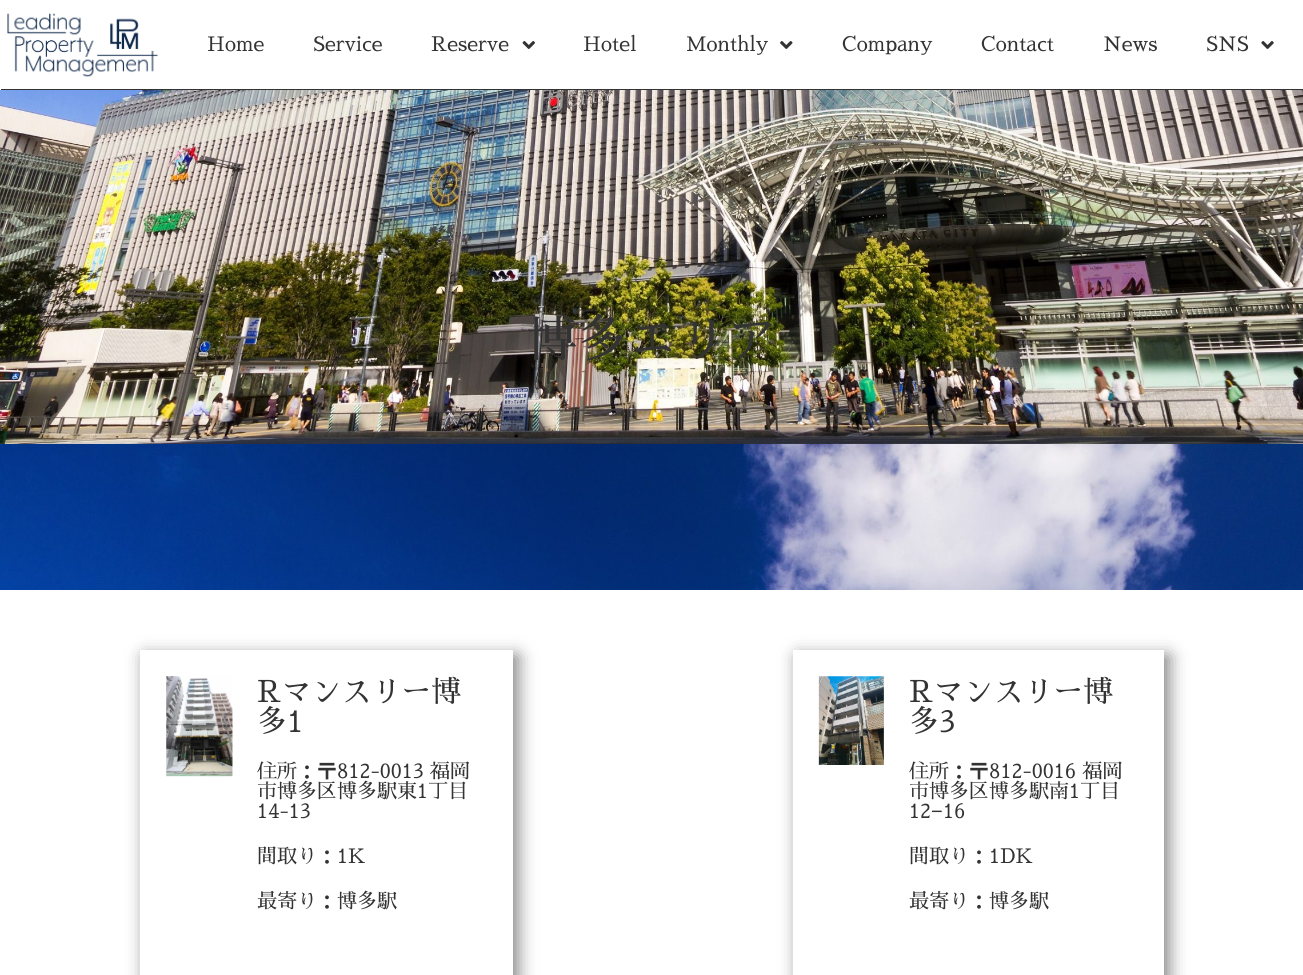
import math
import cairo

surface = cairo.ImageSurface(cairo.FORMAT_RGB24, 1303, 975)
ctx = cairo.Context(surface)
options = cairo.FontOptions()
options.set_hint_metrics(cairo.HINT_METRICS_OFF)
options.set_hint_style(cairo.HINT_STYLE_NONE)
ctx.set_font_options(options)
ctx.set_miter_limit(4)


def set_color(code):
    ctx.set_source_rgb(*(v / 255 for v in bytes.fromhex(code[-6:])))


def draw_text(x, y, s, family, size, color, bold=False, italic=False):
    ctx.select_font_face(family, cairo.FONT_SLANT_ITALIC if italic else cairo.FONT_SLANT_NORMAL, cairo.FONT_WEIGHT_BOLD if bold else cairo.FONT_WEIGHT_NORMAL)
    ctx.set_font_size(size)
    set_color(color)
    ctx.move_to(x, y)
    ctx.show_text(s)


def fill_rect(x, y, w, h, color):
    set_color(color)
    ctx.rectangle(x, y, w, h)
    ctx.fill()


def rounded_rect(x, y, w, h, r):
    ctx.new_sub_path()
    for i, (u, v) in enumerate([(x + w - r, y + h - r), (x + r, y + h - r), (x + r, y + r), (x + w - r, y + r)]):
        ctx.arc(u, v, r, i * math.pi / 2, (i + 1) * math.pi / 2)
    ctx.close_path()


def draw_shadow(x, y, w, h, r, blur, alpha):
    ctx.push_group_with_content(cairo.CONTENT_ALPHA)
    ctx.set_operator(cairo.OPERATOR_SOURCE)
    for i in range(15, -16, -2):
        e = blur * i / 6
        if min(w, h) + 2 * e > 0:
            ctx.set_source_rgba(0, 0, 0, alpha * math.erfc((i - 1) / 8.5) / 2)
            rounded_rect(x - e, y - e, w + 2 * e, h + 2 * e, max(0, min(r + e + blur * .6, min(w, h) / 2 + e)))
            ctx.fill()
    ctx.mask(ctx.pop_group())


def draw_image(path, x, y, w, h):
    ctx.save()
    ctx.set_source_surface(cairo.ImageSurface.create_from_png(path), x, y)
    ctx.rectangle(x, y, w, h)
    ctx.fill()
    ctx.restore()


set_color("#ffffff")
ctx.paint()
fill_rect(1, 89, 1302, 1, "#333333")
draw_image("assets/img1.png", 7, 13, 151, 64)
draw_text(207, 51, "Home", "Sawarabi Mincho", 20, "#333333")
draw_text(313, 51, "Service", "Sawarabi Mincho", 20, "#333333")
draw_text(431, 51, "Reserve", "Sawarabi Mincho", 20, "#333333")
draw_image("assets/img2.png", 522, 41, 13, 8)
draw_text(583, 51, "Hotel", "Sawarabi Mincho", 20, "#333333")
draw_text(686, 51, "Monthly", "Sawarabi Mincho", 20, "#333333")
draw_image("assets/img3.png", 780, 41, 13, 8)
draw_text(842, 51, "Company", "Sawarabi Mincho", 20, "#333333")
draw_text(981, 51, "Contact", "Sawarabi Mincho", 20, "#333333")
draw_text(1103, 51, "News", "Sawarabi Mincho", 20, "#333333")
draw_text(1206, 51, "SNS", "Sawarabi Mincho", 20, "#333333")
draw_image("assets/img4.png", 1261, 41, 13, 8)
draw_image("assets/img5.png", 0, 90, 1303, 500)
draw_text(527, 357, "博多エリア", "Sawarabi Mincho", 50, "#333333")
ctx.save()
ctx.set_fill_rule(cairo.FILL_RULE_EVEN_ODD)
ctx.new_path()
ctx.move_to(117, 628)
ctx.line_to(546, 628)
ctx.line_to(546, 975)
ctx.line_to(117, 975)
ctx.close_path()
ctx.move_to(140, 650)
ctx.line_to(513, 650)
ctx.line_to(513, 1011)
ctx.line_to(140, 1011)
ctx.close_path()
ctx.clip()
set_color("#000000")
draw_shadow(145, 656, 373, 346, 0, 9, 0.5)
ctx.restore()
draw_image("assets/img6.png", 166, 676, 67, 101)
draw_text(257, 702, "Rマンスリー博", "Sawarabi Mincho", 30, "#333333")
draw_text(257, 732, "多1", "Sawarabi Mincho", 30, "#333333")
draw_text(257, 778, "住所：〒812-0013 福岡", "Sawarabi Mincho", 20, "#333333")
draw_text(257, 798, "市博多区博多駅東1丁目", "Sawarabi Mincho", 20, "#333333")
draw_text(257, 818, "14-13", "Sawarabi Mincho", 20, "#333333")
draw_text(257, 863, "間取り：1K", "Sawarabi Mincho", 20, "#333333")
draw_text(257, 908, "最寄り：博多駅", "Sawarabi Mincho", 20, "#333333")
ctx.save()
ctx.set_fill_rule(cairo.FILL_RULE_EVEN_ODD)
ctx.new_path()
ctx.move_to(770, 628)
ctx.line_to(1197, 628)
ctx.line_to(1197, 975)
ctx.line_to(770, 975)
ctx.close_path()
ctx.move_to(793, 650)
ctx.line_to(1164, 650)
ctx.line_to(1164, 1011)
ctx.line_to(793, 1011)
ctx.close_path()
ctx.clip()
set_color("#000000")
draw_shadow(798, 656, 371, 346, 0, 9, 0.5)
ctx.restore()
draw_image("assets/img7.png", 818, 676, 66, 89)
draw_text(909, 702, "Rマンスリー博", "Sawarabi Mincho", 30, "#333333")
draw_text(909, 732, "多3", "Sawarabi Mincho", 30, "#333333")
draw_text(909, 778, "住所：〒812-0016 福岡", "Sawarabi Mincho", 20, "#333333")
draw_text(909, 798, "市博多区博多駅南1丁目", "Sawarabi Mincho", 20, "#333333")
draw_text(909, 818, "12", "Sawarabi Mincho", 20, "#333333")
draw_text(931, 818, "−", "Liberation Sans", 20, "#333333")
draw_text(943, 818, "16", "Sawarabi Mincho", 20, "#333333")
draw_text(909, 863, "間取り：1DK", "Sawarabi Mincho", 20, "#333333")
draw_text(909, 908, "最寄り：博多駅", "Sawarabi Mincho", 20, "#333333")
surface.write_to_png("output.png")
